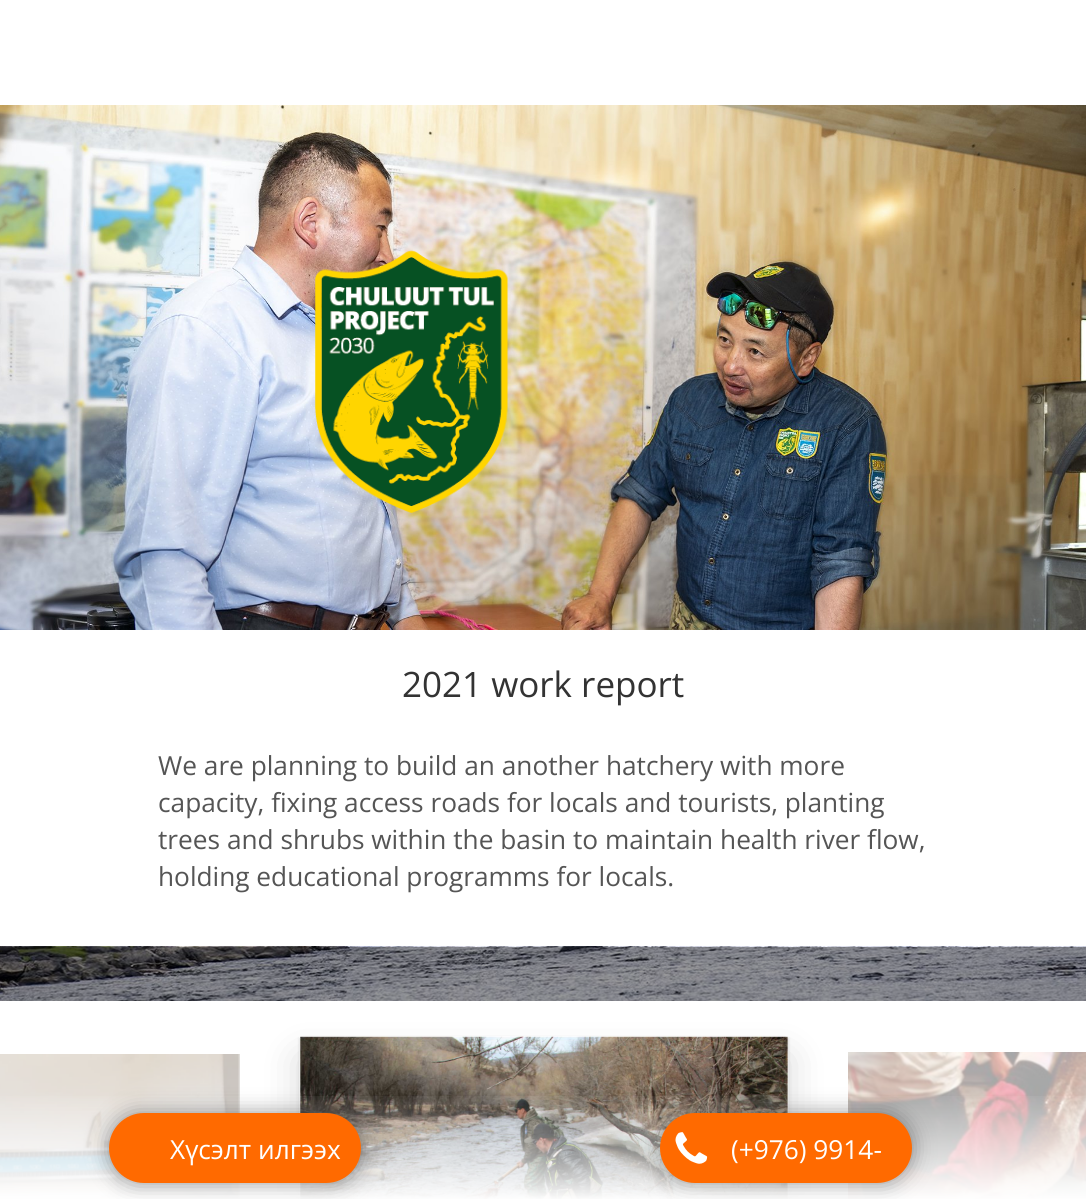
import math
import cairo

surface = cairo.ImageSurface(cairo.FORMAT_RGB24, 1086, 1199)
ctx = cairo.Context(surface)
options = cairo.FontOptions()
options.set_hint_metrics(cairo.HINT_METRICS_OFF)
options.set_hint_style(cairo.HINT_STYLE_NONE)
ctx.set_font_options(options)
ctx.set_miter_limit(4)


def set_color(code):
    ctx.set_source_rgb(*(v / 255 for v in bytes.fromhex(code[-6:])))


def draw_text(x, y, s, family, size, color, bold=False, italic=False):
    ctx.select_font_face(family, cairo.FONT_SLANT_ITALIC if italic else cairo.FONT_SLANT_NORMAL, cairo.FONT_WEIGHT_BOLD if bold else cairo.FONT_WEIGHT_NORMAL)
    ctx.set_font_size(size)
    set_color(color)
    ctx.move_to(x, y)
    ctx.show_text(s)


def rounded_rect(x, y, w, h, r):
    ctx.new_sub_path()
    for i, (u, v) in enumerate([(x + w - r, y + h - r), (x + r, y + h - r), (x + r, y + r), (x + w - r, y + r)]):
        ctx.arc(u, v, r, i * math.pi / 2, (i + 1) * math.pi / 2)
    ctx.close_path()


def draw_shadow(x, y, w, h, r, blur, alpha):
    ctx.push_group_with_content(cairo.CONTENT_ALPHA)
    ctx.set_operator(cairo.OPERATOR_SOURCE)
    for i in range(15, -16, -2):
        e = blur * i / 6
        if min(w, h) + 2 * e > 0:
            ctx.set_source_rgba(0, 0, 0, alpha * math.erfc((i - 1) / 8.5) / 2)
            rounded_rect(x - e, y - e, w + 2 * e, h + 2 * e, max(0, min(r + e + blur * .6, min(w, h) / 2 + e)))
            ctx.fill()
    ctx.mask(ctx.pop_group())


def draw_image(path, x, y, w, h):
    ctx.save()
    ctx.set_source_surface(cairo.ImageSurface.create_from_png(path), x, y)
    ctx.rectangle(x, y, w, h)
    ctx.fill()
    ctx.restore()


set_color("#ffffff")
ctx.paint()
draw_image("assets/img1.png", 0, 105, 1086, 525)
draw_image("assets/img2.png", 315, 250, 193, 263)
draw_text(402, 697, "2021 work report", "Open Sans", 35, "#333333")
draw_text(158, 775, "We are planning to build an another hatchery with more", "Open Sans", 26.25, "#555555")
draw_text(158, 812, "capacity, fixing access roads for locals and tourists, planting", "Open Sans", 26.25, "#555555")
draw_text(158, 849, "trees and shrubs within the basin to maintain health river flow,", "Open Sans", 26.25, "#555555")
draw_text(158, 886, "holding educational programms for locals.", "Open Sans", 26.25, "#555555")
draw_image("assets/img3.png", 0, 946, 1086, 55)
draw_image("assets/img4.png", 0, 1054, 240, 145)
ctx.save()
ctx.set_fill_rule(cairo.FILL_RULE_EVEN_ODD)
ctx.new_path()
ctx.move_to(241, 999)
ctx.line_to(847, 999)
ctx.line_to(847, 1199)
ctx.line_to(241, 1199)
ctx.close_path()
ctx.move_to(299, 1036)
ctx.line_to(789, 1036)
ctx.line_to(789, 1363)
ctx.line_to(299, 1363)
ctx.close_path()
ctx.clip()
set_color("#000000")
draw_shadow(299, 1057, 490, 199, 0, 19, 0.15)
ctx.restore()
set_color("#000000")
draw_shadow(299, 1038, 490, 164, 0, 1, 0.1)
draw_image("assets/img5.png", 300, 1036, 489, 163)
draw_image("assets/img6.png", 848, 1052, 238, 147)
gradient = cairo.LinearGradient(543, 1096, 543, 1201)
gradient.add_color_stop_rgba(0, 1, 1, 1, 0.05)
gradient.add_color_stop_rgba(1, 1, 1, 1, 1)
ctx.set_source(gradient)
ctx.rectangle(0, 1096, 1086, 103)
ctx.fill()
set_color("#333333")
draw_shadow(109, 1113, 252, 70, 35, 10.5, 0.5)
set_color("#ff6a00")
rounded_rect(109, 1113, 252, 70, 35)
ctx.fill()
draw_text(170, 1159, "Хүсэлт илгээх", "Open Sans", 26.25, "#ffffff")
set_color("#333333")
draw_shadow(660, 1113, 252, 70, 35, 10.5, 0.5)
set_color("#ff6a00")
rounded_rect(660, 1113, 252, 70, 35)
ctx.fill()
draw_image("assets/img7.png", 675, 1132, 33, 32)
draw_text(731, 1159, "(+976) 9914-", "Open Sans", 26.25, "#ffffff")
surface.write_to_png("output.png")
